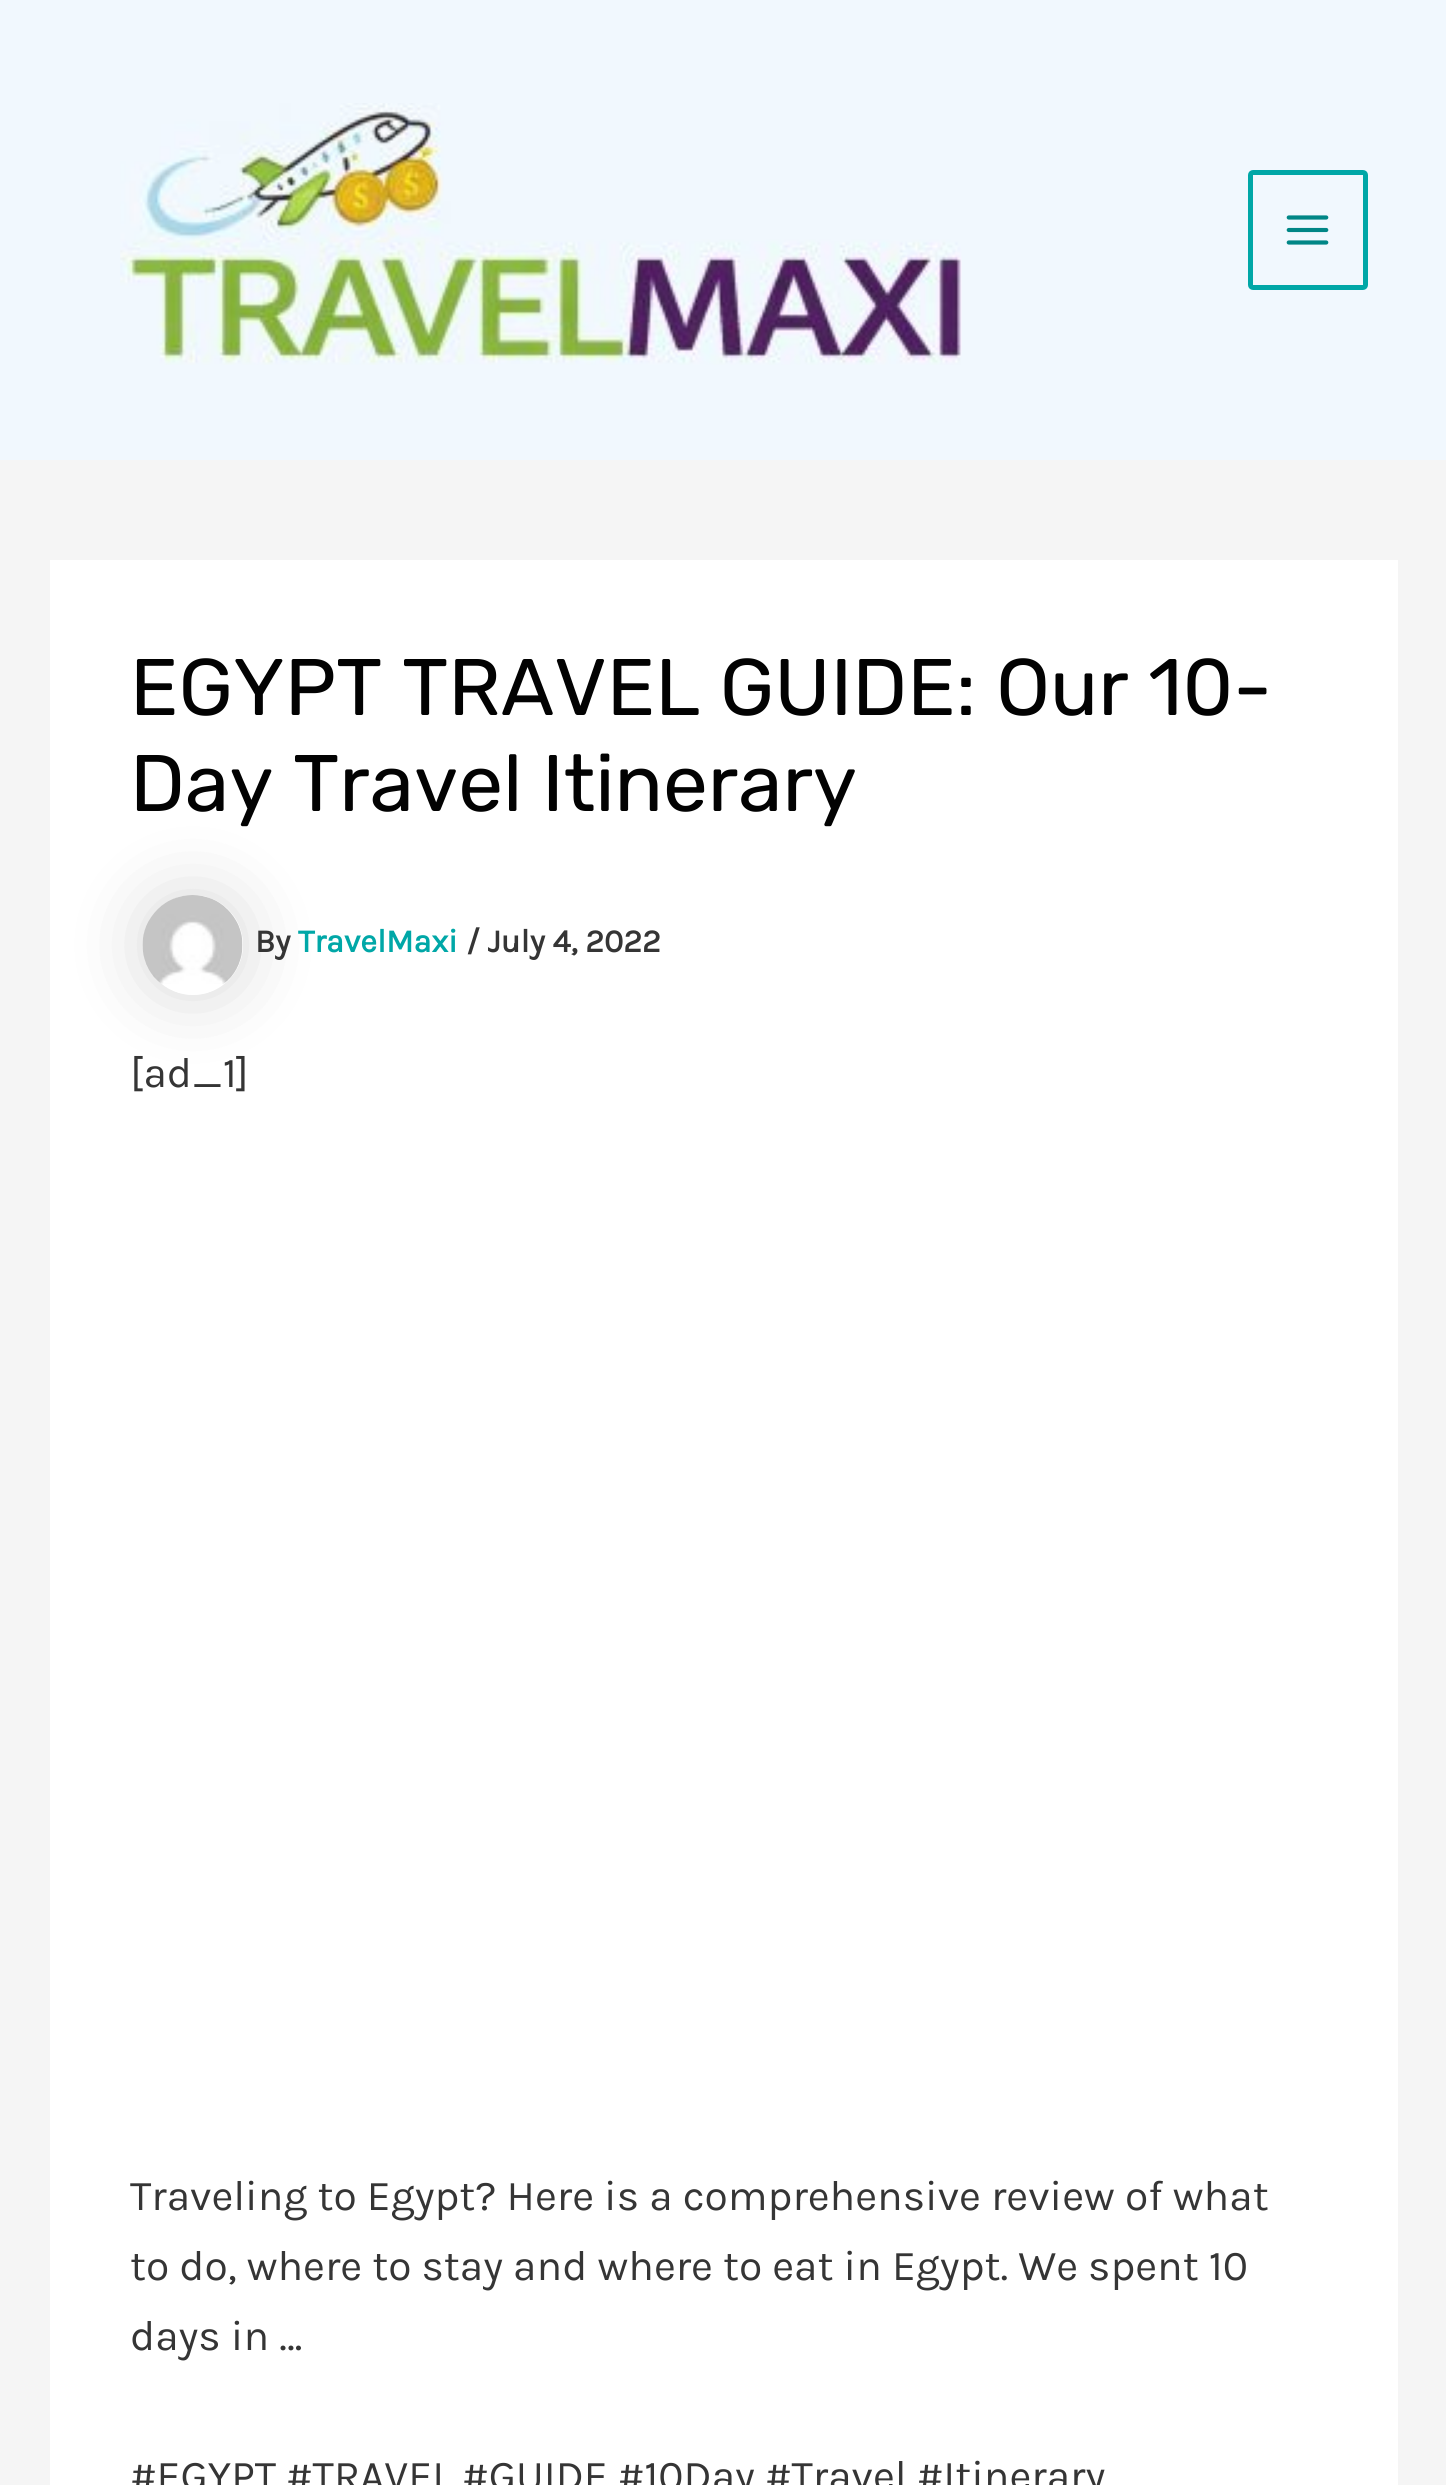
import math
import cairo

surface = cairo.ImageSurface(cairo.FORMAT_RGB24, 1446, 2485)
ctx = cairo.Context(surface)
options = cairo.FontOptions()
options.set_hint_metrics(cairo.HINT_METRICS_OFF)
options.set_hint_style(cairo.HINT_STYLE_NONE)
ctx.set_font_options(options)
ctx.set_miter_limit(4)


def set_color(code):
    ctx.set_source_rgb(*(v / 255 for v in bytes.fromhex(code[-6:])))


def draw_text(x, y, s, family, size, color, bold=False, italic=False):
    ctx.select_font_face(family, cairo.FONT_SLANT_ITALIC if italic else cairo.FONT_SLANT_NORMAL, cairo.FONT_WEIGHT_BOLD if bold else cairo.FONT_WEIGHT_NORMAL)
    ctx.set_font_size(size)
    set_color(color)
    ctx.move_to(x, y)
    ctx.show_text(s)


def fill_rect(x, y, w, h, color):
    set_color(color)
    ctx.rectangle(x, y, w, h)
    ctx.fill()


def rounded_rect(x, y, w, h, r):
    ctx.new_sub_path()
    for i, (u, v) in enumerate([(x + w - r, y + h - r), (x + r, y + h - r), (x + r, y + r), (x + w - r, y + r)]):
        ctx.arc(u, v, r, i * math.pi / 2, (i + 1) * math.pi / 2)
    ctx.close_path()


def draw_shadow(x, y, w, h, r, blur, alpha):
    ctx.push_group_with_content(cairo.CONTENT_ALPHA)
    ctx.set_operator(cairo.OPERATOR_SOURCE)
    for i in range(15, -16, -2):
        e = blur * i / 6
        if min(w, h) + 2 * e > 0:
            ctx.set_source_rgba(0, 0, 0, alpha * math.erfc((i - 1) / 8.5) / 2)
            rounded_rect(x - e, y - e, w + 2 * e, h + 2 * e, max(0, min(r + e + blur * .6, min(w, h) / 2 + e)))
            ctx.fill()
    ctx.mask(ctx.pop_group())


def draw_image(path, x, y, w, h):
    ctx.save()
    ctx.set_source_surface(cairo.ImageSurface.create_from_png(path), x, y)
    ctx.rectangle(x, y, w, h)
    ctx.fill()
    ctx.restore()


set_color("#f5f5f5")
ctx.paint()
fill_rect(0, 0, 1446, 460, "#f1f8fe")
draw_image("assets/img1.png", 120, 103, 842, 262)
rounded_rect(1250.5, 172.5, 115, 115, 2.5)
set_color("#00a7a7")
ctx.set_line_width(5)
ctx.stroke()
draw_image("assets/img2.png", 1286, 215, 43, 30)
fill_rect(50, 560, 1348, 1925, "#ffffff")
draw_text(130, 715, "EGYPT TRAVEL GUIDE: Our 10-", "Rubik", 80, "#020202")
draw_text(130, 811, "Day Travel Itinerary", "Rubik", 80, "#020202")
ctx.save()
ctx.set_fill_rule(cairo.FILL_RULE_EVEN_ODD)
ctx.new_path()
ctx.move_to(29, 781)
ctx.line_to(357, 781)
ctx.line_to(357, 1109)
ctx.line_to(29, 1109)
ctx.close_path()
ctx.move_to(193, 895)
ctx.curve_to(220.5, 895, 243, 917.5, 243, 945)
ctx.curve_to(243, 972.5, 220.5, 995, 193, 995)
ctx.curve_to(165.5, 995, 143, 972.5, 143, 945)
ctx.curve_to(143, 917.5, 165.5, 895, 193, 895)
ctx.close_path()
ctx.clip()
set_color("#000000")
draw_shadow(143, 895, 100, 100, 50, 37.5, 0.15)
ctx.restore()
draw_image("assets/img3.png", 142, 895, 101, 89)
draw_text(255, 952, "By", "Karla", 32.5, "#353535", bold=True)
draw_text(298, 952, "TravelMaxi", "Karla", 32.5, "#00a7a7", bold=True)
draw_text(466, 952, "/ July 4, 2022", "Karla", 32.5, "#353535", bold=True)
draw_text(130, 1087, "[ad_1]", "Karla", 42.5, "#353535")
draw_text(130, 2210, "Traveling to Egypt? Here is a comprehensive review of what", "Karla", 42.5, "#353535")
draw_text(130, 2280, "to do, where to stay and where to eat in Egypt. We spent 10", "Karla", 42.5, "#353535")
draw_text(130, 2350, "days in …", "Karla", 42.5, "#353535")
draw_text(130, 2490, "#EGYPT #TRAVEL #GUIDE #10Day #Travel #Itinerary", "Karla", 42.5, "#353535")
surface.write_to_png("output.png")
